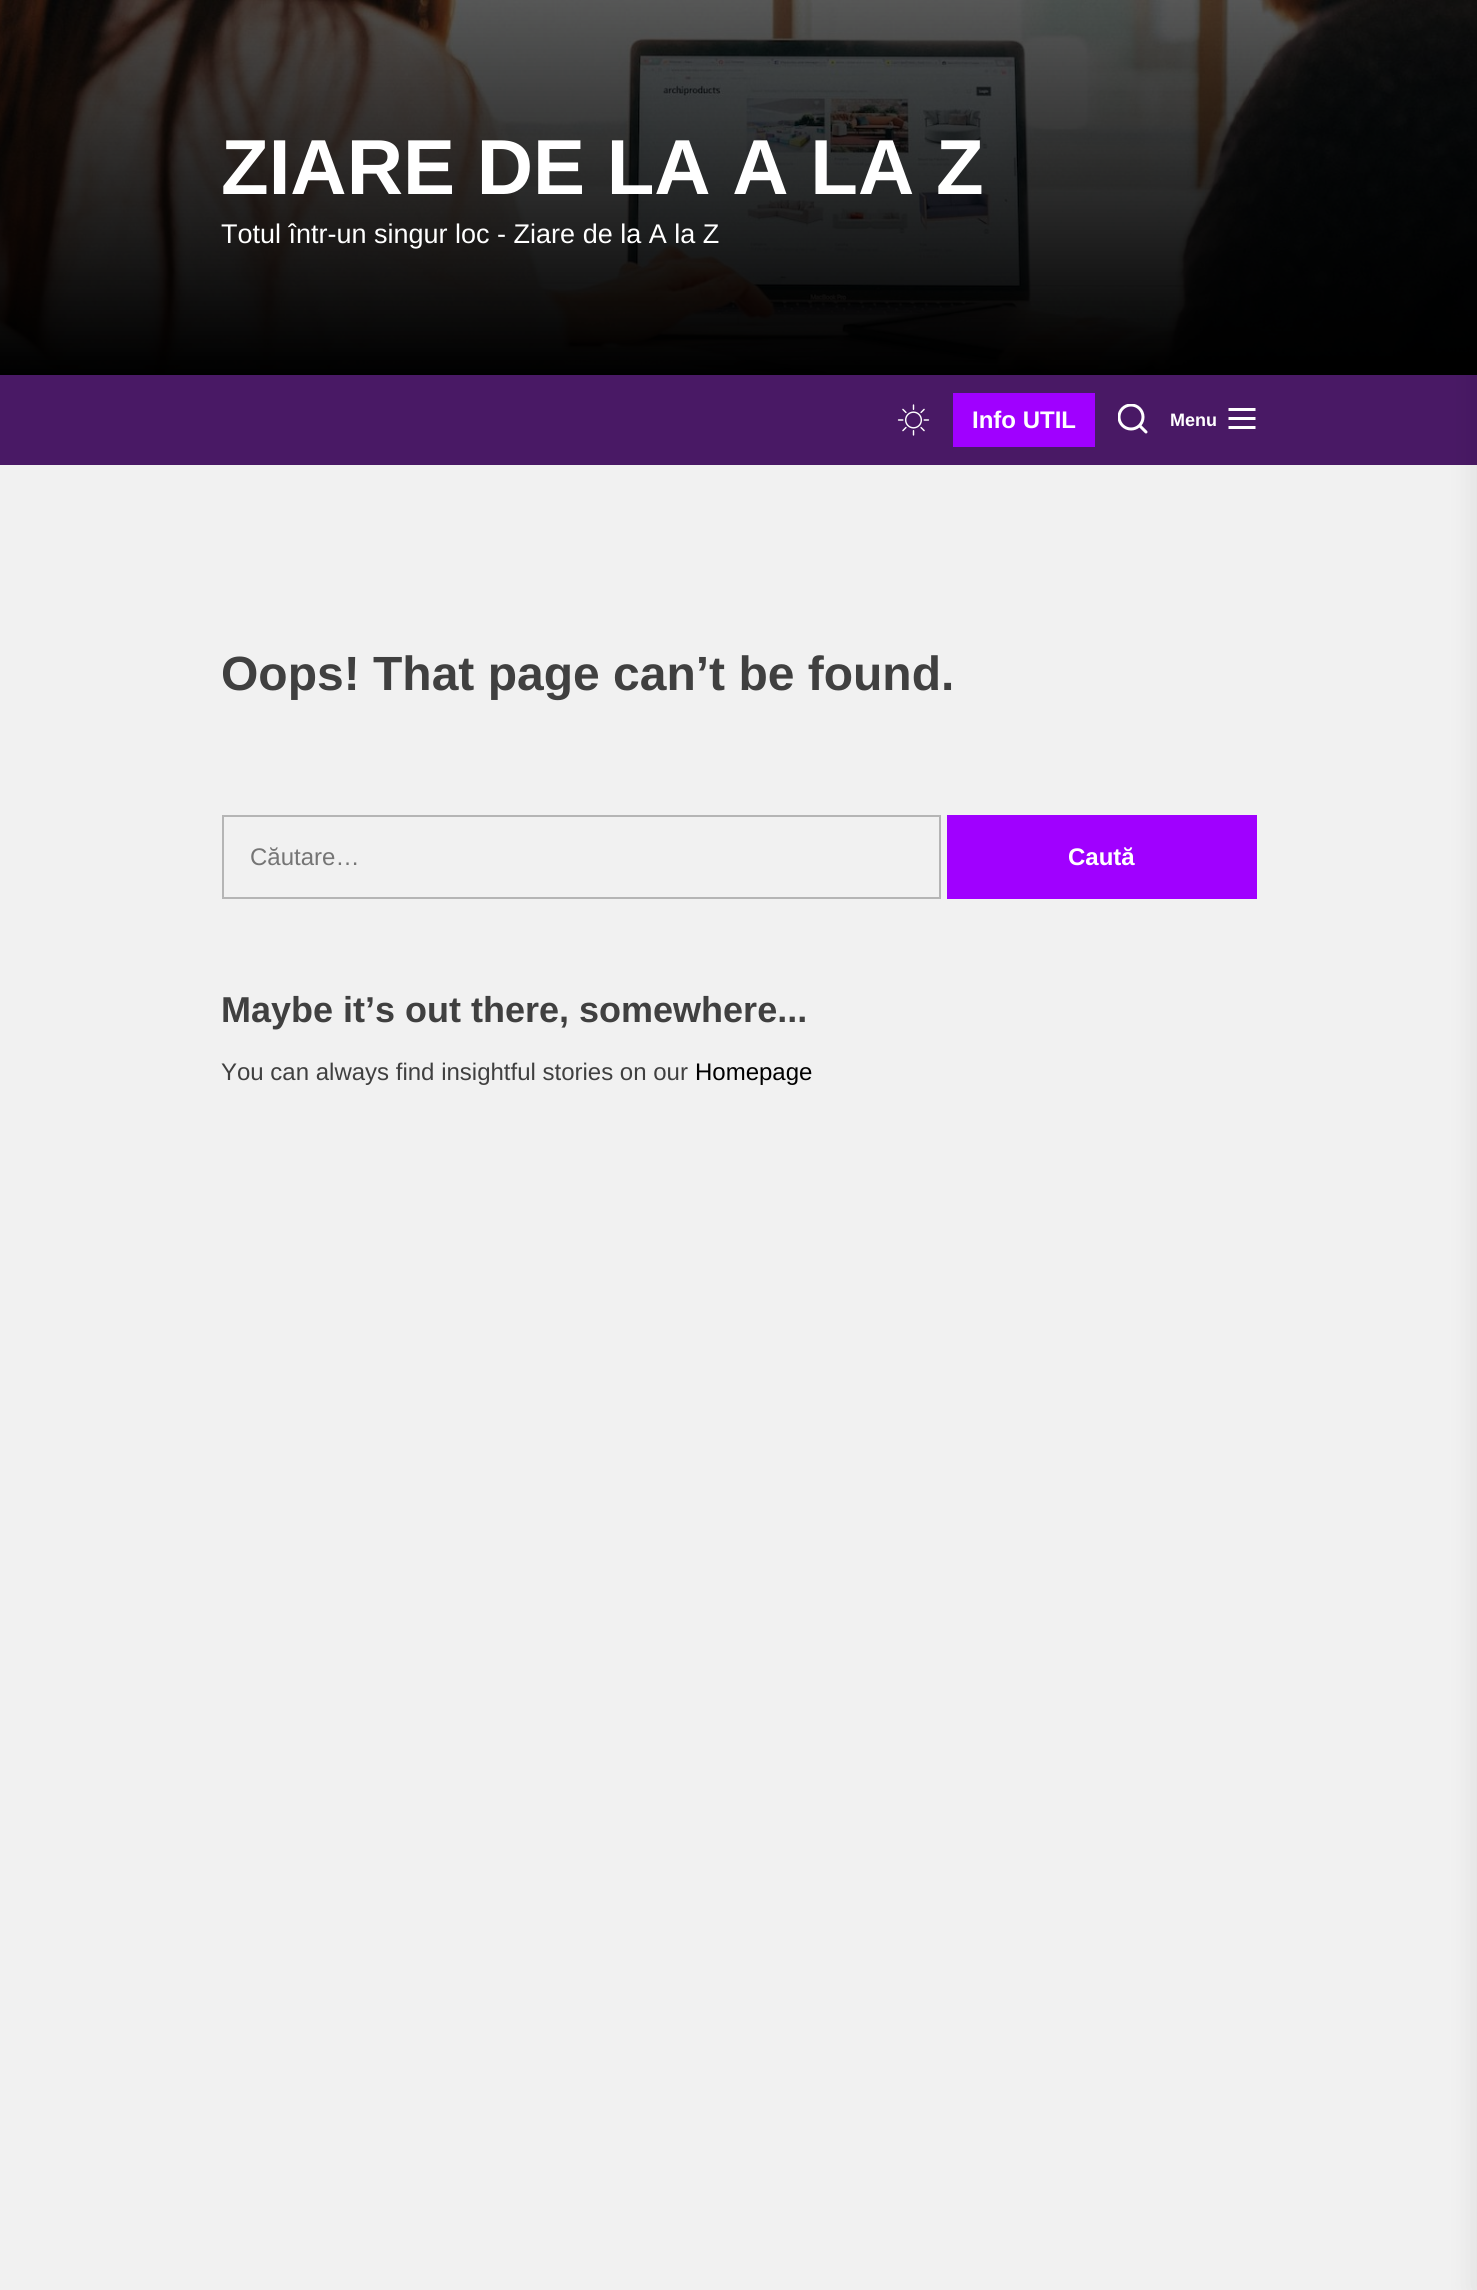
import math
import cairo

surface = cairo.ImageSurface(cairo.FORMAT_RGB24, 1477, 2290)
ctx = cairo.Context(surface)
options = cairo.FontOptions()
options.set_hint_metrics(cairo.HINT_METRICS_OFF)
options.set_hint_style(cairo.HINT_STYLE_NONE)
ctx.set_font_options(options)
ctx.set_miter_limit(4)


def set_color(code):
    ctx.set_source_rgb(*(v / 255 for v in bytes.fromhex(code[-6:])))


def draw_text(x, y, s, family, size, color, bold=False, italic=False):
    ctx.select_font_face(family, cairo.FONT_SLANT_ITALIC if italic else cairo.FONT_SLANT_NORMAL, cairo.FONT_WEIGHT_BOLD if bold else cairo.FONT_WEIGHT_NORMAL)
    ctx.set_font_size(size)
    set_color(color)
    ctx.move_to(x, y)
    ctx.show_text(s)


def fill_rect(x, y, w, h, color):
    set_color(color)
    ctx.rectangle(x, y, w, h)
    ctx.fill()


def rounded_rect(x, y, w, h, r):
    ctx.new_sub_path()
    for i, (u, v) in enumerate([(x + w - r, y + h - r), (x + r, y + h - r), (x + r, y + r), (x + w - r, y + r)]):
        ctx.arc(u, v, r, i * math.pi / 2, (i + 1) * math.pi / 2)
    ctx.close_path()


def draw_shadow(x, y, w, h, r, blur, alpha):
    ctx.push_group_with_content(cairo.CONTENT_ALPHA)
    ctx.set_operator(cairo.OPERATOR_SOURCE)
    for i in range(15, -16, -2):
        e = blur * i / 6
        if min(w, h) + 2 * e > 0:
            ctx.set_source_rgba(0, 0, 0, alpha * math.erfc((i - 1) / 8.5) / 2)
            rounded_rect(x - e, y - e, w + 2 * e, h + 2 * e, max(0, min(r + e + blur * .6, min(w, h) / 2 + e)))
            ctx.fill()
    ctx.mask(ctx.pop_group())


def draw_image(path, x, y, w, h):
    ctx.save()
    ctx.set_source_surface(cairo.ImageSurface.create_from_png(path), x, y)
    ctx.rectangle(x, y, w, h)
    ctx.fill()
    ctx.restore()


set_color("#f1f1f1")
ctx.paint()
draw_image("assets/img1.png", 0, 0, 1477, 375)
draw_text(221, 194, "ZIARE DE LA A LA Z", "Liberation Sans", 78, "#ffffff", bold=True)
draw_text(221, 243, "Totul într-un singur loc - Ziare de la A la Z", "Liberation Sans", 27, "#ffffff")
fill_rect(0, 375, 1477, 90, "#491965")
draw_image("assets/img2.png", 897, 404, 33, 32)
fill_rect(953, 393, 142, 54, "#a000ff")
draw_text(972, 428, "Info UTIL", "Liberation Sans", 24, "#ffffff", bold=True)
draw_image("assets/img3.png", 1118, 404, 30, 30)
draw_text(1170, 426, "Menu", "Liberation Sans", 18, "#ffffff", bold=True)
draw_image("assets/img4.png", 1228, 408, 28, 21)
set_color("#000000")
draw_shadow(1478, 0, 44, 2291, 0, 15, 0.1)
draw_text(221, 690, "Oops! That page can’t be found.", "Liberation Sans", 48, "#404040", bold=True)
ctx.rectangle(223, 816, 717, 82)
set_color("#b5b5b5")
ctx.stroke()
draw_text(250, 865, "Căutare…", "Liberation Sans", 24, "#757575")
fill_rect(947, 815, 310, 84, "#a000ff")
draw_text(1068, 865, "Caută", "Liberation Sans", 24, "#ffffff", bold=True)
draw_text(221, 1022, "Maybe it’s out there, somewhere...", "Liberation Sans", 36, "#404040", bold=True)
draw_text(221, 1080, "You can always find insightful stories on our", "Liberation Sans", 24, "#404040")
draw_text(695, 1080, "Homepage", "Liberation Sans", 24, "#000000")
surface.write_to_png("output.png")
